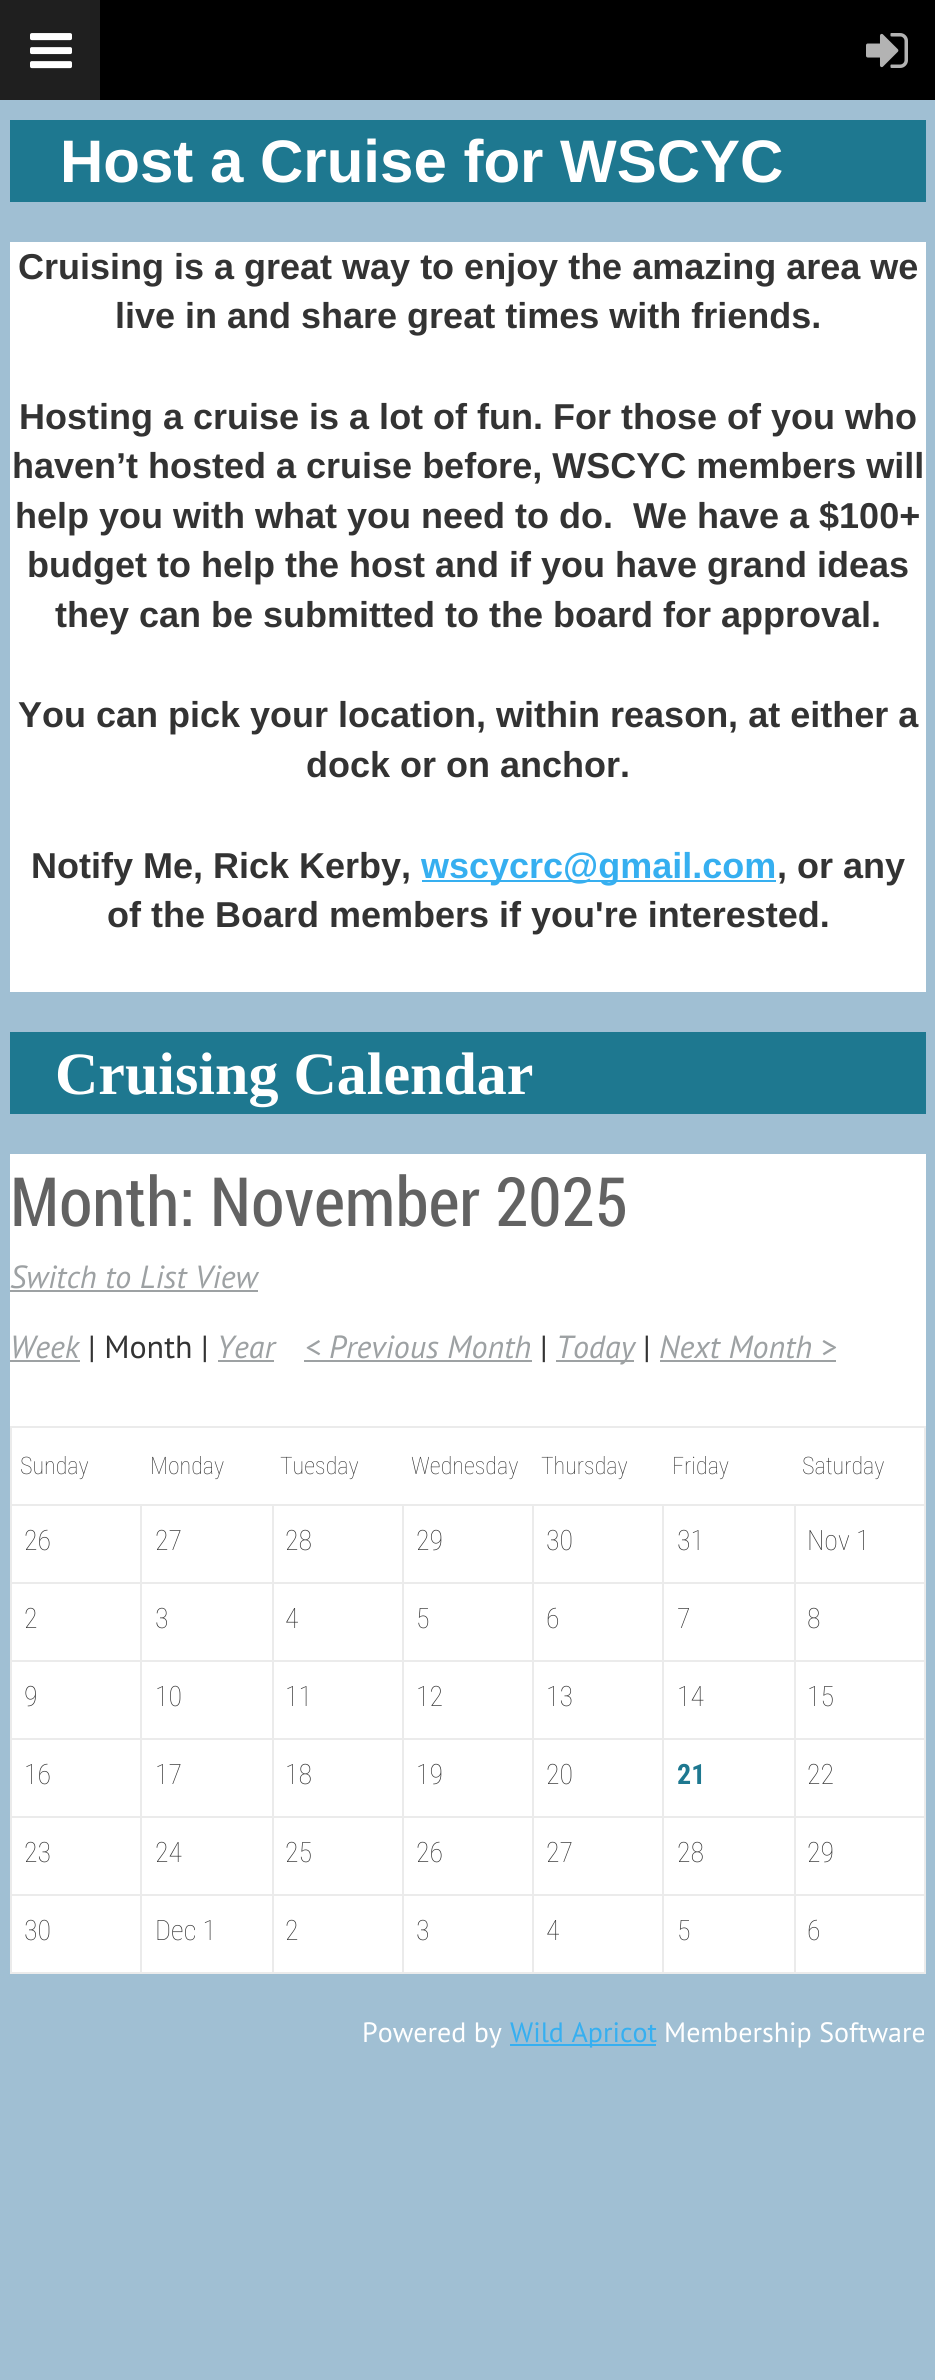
import math
import cairo

surface = cairo.ImageSurface(cairo.FORMAT_RGB24, 935, 2380)
ctx = cairo.Context(surface)
options = cairo.FontOptions()
options.set_hint_metrics(cairo.HINT_METRICS_OFF)
options.set_hint_style(cairo.HINT_STYLE_NONE)
ctx.set_font_options(options)
ctx.set_miter_limit(4)


def set_color(code):
    ctx.set_source_rgb(*(v / 255 for v in bytes.fromhex(code[-6:])))


def draw_text(x, y, s, family, size, color, bold=False, italic=False):
    ctx.select_font_face(family, cairo.FONT_SLANT_ITALIC if italic else cairo.FONT_SLANT_NORMAL, cairo.FONT_WEIGHT_BOLD if bold else cairo.FONT_WEIGHT_NORMAL)
    ctx.set_font_size(size)
    set_color(color)
    ctx.move_to(x, y)
    ctx.show_text(s)


def fill_rect(x, y, w, h, color):
    set_color(color)
    ctx.rectangle(x, y, w, h)
    ctx.fill()


def draw_image(path, x, y, w, h):
    ctx.save()
    ctx.set_source_surface(cairo.ImageSurface.create_from_png(path), x, y)
    ctx.rectangle(x, y, w, h)
    ctx.fill()
    ctx.restore()


set_color("#a0bfd3")
ctx.paint()
fill_rect(100, 0, 835, 100, "#000000")
fill_rect(0, 0, 100, 100, "#1f1f1f")
draw_image("assets/img1.png", 30, 33, 42, 36)
draw_image("assets/img2.png", 866, 33, 42, 35)
fill_rect(10, 120, 916, 82, "#1e7890")
draw_text(60, 182, "Host a Cruise for WSCYC", "Liberation Sans", 60, "#ffffff", bold=True)
fill_rect(10, 242, 916, 750, "#ffffff")
draw_text(18, 279, "Cruising is a great way to enjoy the amazing area we", "Liberation Sans", 36, "#333333", bold=True)
draw_text(115, 328, "live in and share great times with friends.", "Liberation Sans", 36, "#333333", bold=True)
draw_text(19, 429, "Hosting a cruise is a lot of fun. For those of you who", "Liberation Sans", 36, "#333333", bold=True)
draw_text(12, 478, "haven’t hosted a cruise before, WSCYC members will", "Liberation Sans", 36, "#333333", bold=True)
draw_text(15, 528, "help you with what you need to do.  We have a $100+", "Liberation Sans", 36, "#333333", bold=True)
draw_text(27, 577, "budget to help the host and if you have grand ideas", "Liberation Sans", 36, "#333333", bold=True)
draw_text(55, 627, "they can be submitted to the board for approval.", "Liberation Sans", 36, "#333333", bold=True)
draw_text(18, 727, "You can pick your location, within reason, at either a", "Liberation Sans", 36, "#333333", bold=True)
draw_text(306, 777, "dock or on anchor.", "Liberation Sans", 36, "#333333", bold=True)
draw_text(31, 878, "Notify Me, Rick Kerby,", "Liberation Sans", 36, "#333333", bold=True)
fill_rect(422, 880, 354, 2, "#36aff0")
draw_text(421, 878, "wscycrc@gmail.com", "Liberation Sans", 36, "#36aff0", bold=True)
draw_text(777, 878, ", or any", "Liberation Sans", 36, "#333333", bold=True)
draw_text(107, 927, "of the Board members if you're interested.", "Liberation Sans", 36, "#333333", bold=True)
fill_rect(10, 1032, 916, 82, "#1e7890")
draw_text(55, 1094, "Cruising Calendar", "Liberation Serif", 60, "#ffffff", bold=True)
fill_rect(10, 1154, 916, 818, "#ffffff")
draw_text(10, 1226, "Month: November 2025", "Roboto Condensed", 68, "#626262")
draw_text(10, 1288, "Switch to List View", "PT Sans", 32, "#9da1a3", italic=True)
fill_rect(10, 1290, 248, 2, "#9da1a3")
draw_text(10, 1358, "Week", "PT Sans", 32, "#9da1a3", italic=True)
fill_rect(10, 1360, 70, 2, "#9da1a3")
draw_text(88, 1358, "| Month |", "PT Sans", 32, "#333333")
draw_text(217, 1358, "Year", "PT Sans", 32, "#9da1a3", italic=True)
fill_rect(218, 1360, 56, 2, "#9da1a3")
draw_text(305, 1358, "< Previous Month", "PT Sans", 32, "#9da1a3", italic=True)
fill_rect(304, 1360, 228, 2, "#9da1a3")
draw_text(540, 1358, "|", "PT Sans", 32, "#333333")
fill_rect(556, 1360, 78, 2, "#9da1a3")
draw_text(556, 1358, "Today", "PT Sans", 32, "#9da1a3", italic=True)
draw_text(643, 1358, "|", "PT Sans", 32, "#333333")
draw_text(659, 1358, "Next Month >", "PT Sans", 32, "#9da1a3", italic=True)
fill_rect(660, 1360, 176, 2, "#9da1a3")
fill_rect(10, 1426, 916, 2, "#ebebeb")
fill_rect(924, 1426, 2, 548, "#ebebeb")
fill_rect(10, 1972, 916, 2, "#ebebeb")
fill_rect(10, 1426, 2, 548, "#ebebeb")
draw_text(20, 1474, "Sunday", "Roboto Condensed Thin", 24, "#333333")
draw_text(150, 1474, "Monday", "Roboto Condensed Thin", 24, "#333333")
draw_text(280, 1474, "Tuesday", "Roboto Condensed Thin", 24, "#333333")
draw_text(411, 1474, "Wednesday", "Roboto Condensed Thin", 24, "#333333")
draw_text(541, 1474, "Thursday", "Roboto Condensed Thin", 24, "#333333")
draw_text(672, 1474, "Friday", "Roboto Condensed Thin", 24, "#333333")
draw_text(802, 1474, "Saturday", "Roboto Condensed Thin", 24, "#333333")
fill_rect(10, 1504, 916, 2, "#ebebeb")
fill_rect(10, 1582, 916, 2, "#ebebeb")
fill_rect(10, 1660, 916, 2, "#ebebeb")
fill_rect(10, 1738, 916, 2, "#ebebeb")
fill_rect(10, 1816, 916, 2, "#ebebeb")
fill_rect(10, 1894, 916, 2, "#ebebeb")
fill_rect(140, 1960, 2, 14, "#ebebeb")
fill_rect(140, 1882, 2, 80, "#ebebeb")
fill_rect(140, 1804, 2, 80, "#ebebeb")
fill_rect(140, 1726, 2, 80, "#ebebeb")
fill_rect(140, 1648, 2, 80, "#ebebeb")
fill_rect(140, 1570, 2, 80, "#ebebeb")
fill_rect(140, 1504, 2, 68, "#ebebeb")
draw_text(24, 1550, "26", "Roboto Condensed Thin", 28, "#333333")
fill_rect(272, 1960, 2, 14, "#ebebeb")
fill_rect(272, 1882, 2, 80, "#ebebeb")
fill_rect(272, 1804, 2, 80, "#ebebeb")
fill_rect(272, 1726, 2, 80, "#ebebeb")
fill_rect(272, 1648, 2, 80, "#ebebeb")
fill_rect(272, 1570, 2, 80, "#ebebeb")
fill_rect(272, 1504, 2, 68, "#ebebeb")
draw_text(155, 1550, "27", "Roboto Condensed Thin", 28, "#333333")
fill_rect(402, 1960, 2, 14, "#ebebeb")
fill_rect(402, 1882, 2, 80, "#ebebeb")
fill_rect(402, 1804, 2, 80, "#ebebeb")
fill_rect(402, 1726, 2, 80, "#ebebeb")
fill_rect(402, 1648, 2, 80, "#ebebeb")
fill_rect(402, 1570, 2, 80, "#ebebeb")
fill_rect(402, 1504, 2, 68, "#ebebeb")
draw_text(285, 1550, "28", "Roboto Condensed Thin", 28, "#333333")
fill_rect(532, 1960, 2, 14, "#ebebeb")
fill_rect(532, 1882, 2, 80, "#ebebeb")
fill_rect(532, 1804, 2, 80, "#ebebeb")
fill_rect(532, 1726, 2, 80, "#ebebeb")
fill_rect(532, 1648, 2, 80, "#ebebeb")
fill_rect(532, 1570, 2, 80, "#ebebeb")
fill_rect(532, 1504, 2, 68, "#ebebeb")
draw_text(416, 1550, "29", "Roboto Condensed Thin", 28, "#333333")
fill_rect(662, 1960, 2, 14, "#ebebeb")
fill_rect(662, 1882, 2, 80, "#ebebeb")
fill_rect(662, 1804, 2, 80, "#ebebeb")
fill_rect(662, 1726, 2, 80, "#ebebeb")
fill_rect(662, 1648, 2, 80, "#ebebeb")
fill_rect(662, 1570, 2, 80, "#ebebeb")
fill_rect(662, 1504, 2, 68, "#ebebeb")
draw_text(546, 1550, "30", "Roboto Condensed Thin", 28, "#333333")
fill_rect(794, 1960, 2, 14, "#ebebeb")
fill_rect(794, 1882, 2, 80, "#ebebeb")
fill_rect(794, 1804, 2, 80, "#ebebeb")
fill_rect(794, 1726, 2, 80, "#ebebeb")
fill_rect(794, 1648, 2, 80, "#ebebeb")
fill_rect(794, 1570, 2, 80, "#ebebeb")
fill_rect(794, 1504, 2, 68, "#ebebeb")
draw_text(677, 1550, "31", "Roboto Condensed Thin", 28, "#333333")
draw_text(807, 1550, "Nov 1", "Roboto Condensed Thin", 28, "#333333")
draw_text(24, 1628, "2", "Roboto Condensed Thin", 28, "#333333")
draw_text(155, 1628, "3", "Roboto Condensed Thin", 28, "#333333")
draw_text(285, 1628, "4", "Roboto Condensed Thin", 28, "#333333")
draw_text(416, 1628, "5", "Roboto Condensed Thin", 28, "#333333")
draw_text(546, 1628, "6", "Roboto Condensed Thin", 28, "#333333")
draw_text(677, 1628, "7", "Roboto Condensed Thin", 28, "#333333")
draw_text(807, 1628, "8", "Roboto Condensed Thin", 28, "#333333")
draw_text(24, 1706, "9", "Roboto Condensed Thin", 28, "#333333")
draw_text(155, 1706, "10", "Roboto Condensed Thin", 28, "#333333")
draw_text(285, 1706, "11", "Roboto Condensed Thin", 28, "#333333")
draw_text(416, 1706, "12", "Roboto Condensed Thin", 28, "#333333")
draw_text(546, 1706, "13", "Roboto Condensed Thin", 28, "#333333")
draw_text(677, 1706, "14", "Roboto Condensed Thin", 28, "#333333")
draw_text(807, 1706, "15", "Roboto Condensed Thin", 28, "#333333")
draw_text(24, 1784, "16", "Roboto Condensed Thin", 28, "#333333")
draw_text(155, 1784, "17", "Roboto Condensed Thin", 28, "#333333")
draw_text(285, 1784, "18", "Roboto Condensed Thin", 28, "#333333")
draw_text(416, 1784, "19", "Roboto Condensed Thin", 28, "#333333")
draw_text(546, 1784, "20", "Roboto Condensed Thin", 28, "#333333")
draw_text(677, 1784, "21", "Roboto Condensed", 28, "#1e7890", bold=True)
draw_text(807, 1784, "22", "Roboto Condensed Thin", 28, "#333333")
draw_text(24, 1862, "23", "Roboto Condensed Thin", 28, "#333333")
draw_text(155, 1862, "24", "Roboto Condensed Thin", 28, "#333333")
draw_text(285, 1862, "25", "Roboto Condensed Thin", 28, "#333333")
draw_text(416, 1862, "26", "Roboto Condensed Thin", 28, "#333333")
draw_text(546, 1862, "27", "Roboto Condensed Thin", 28, "#333333")
draw_text(677, 1862, "28", "Roboto Condensed Thin", 28, "#333333")
draw_text(807, 1862, "29", "Roboto Condensed Thin", 28, "#333333")
draw_text(24, 1940, "30", "Roboto Condensed Thin", 28, "#333333")
draw_text(155, 1940, "Dec 1", "Roboto Condensed Thin", 28, "#333333")
draw_text(285, 1940, "2", "Roboto Condensed Thin", 28, "#333333")
draw_text(416, 1940, "3", "Roboto Condensed Thin", 28, "#333333")
draw_text(546, 1940, "4", "Roboto Condensed Thin", 28, "#333333")
draw_text(677, 1940, "5", "Roboto Condensed Thin", 28, "#333333")
draw_text(807, 1940, "6", "Roboto Condensed Thin", 28, "#333333")
draw_text(362, 2042, "Powered by", "PT Sans", 28, "#ffffff")
fill_rect(510, 2044, 146, 2, "#36aff0")
draw_text(510, 2042, "Wild Apricot", "PT Sans", 28, "#36aff0")
draw_text(664, 2042, "Membership Software", "PT Sans", 28, "#ffffff")
surface.write_to_png("output.png")
